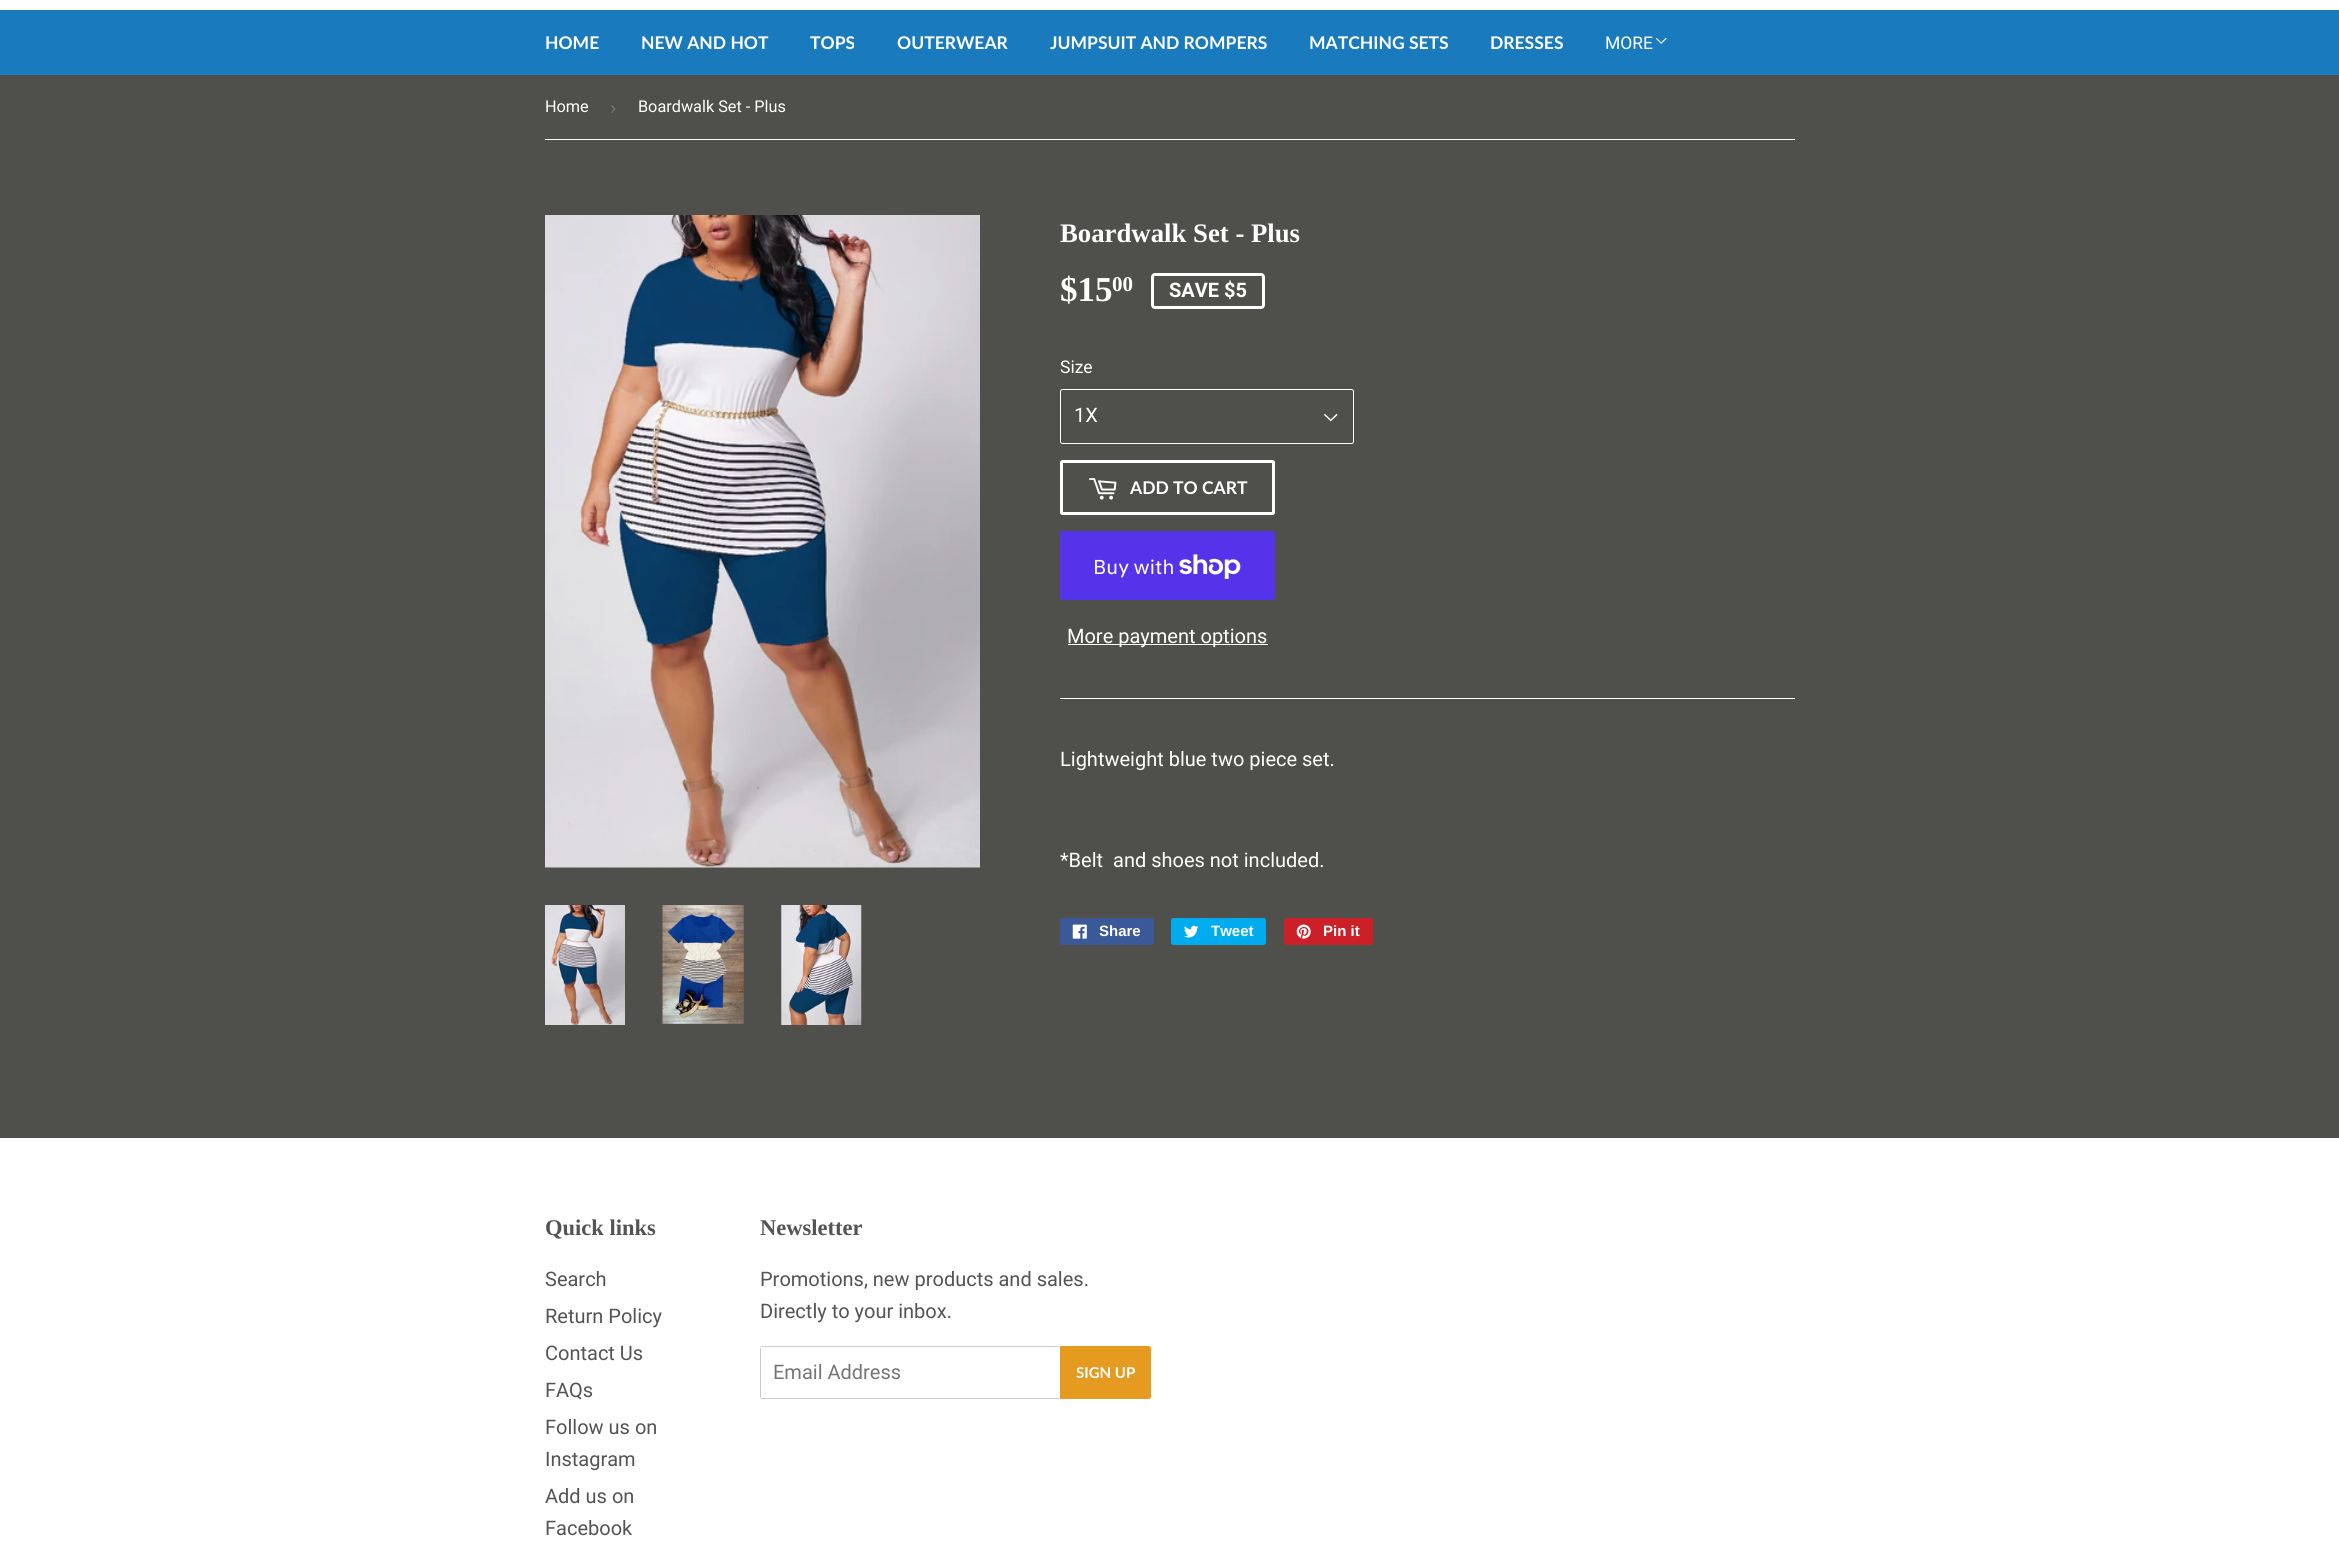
import math
import cairo

surface = cairo.ImageSurface(cairo.FORMAT_RGB24, 2339, 1553)
ctx = cairo.Context(surface)
options = cairo.FontOptions()
options.set_hint_metrics(cairo.HINT_METRICS_OFF)
options.set_hint_style(cairo.HINT_STYLE_NONE)
ctx.set_font_options(options)
ctx.set_miter_limit(4)


def set_color(code):
    ctx.set_source_rgb(*(v / 255 for v in bytes.fromhex(code[-6:])))


def draw_text(x, y, s, family, size, color, bold=False, italic=False):
    ctx.select_font_face(family, cairo.FONT_SLANT_ITALIC if italic else cairo.FONT_SLANT_NORMAL, cairo.FONT_WEIGHT_BOLD if bold else cairo.FONT_WEIGHT_NORMAL)
    ctx.set_font_size(size)
    set_color(color)
    ctx.move_to(x, y)
    ctx.show_text(s)


def fill_rect(x, y, w, h, color):
    set_color(color)
    ctx.rectangle(x, y, w, h)
    ctx.fill()


def rounded_rect(x, y, w, h, r):
    ctx.new_sub_path()
    for i, (u, v) in enumerate([(x + w - r, y + h - r), (x + r, y + h - r), (x + r, y + r), (x + w - r, y + r)]):
        ctx.arc(u, v, r, i * math.pi / 2, (i + 1) * math.pi / 2)
    ctx.close_path()


def draw_image(path, x, y, w, h):
    ctx.save()
    ctx.set_source_surface(cairo.ImageSurface.create_from_png(path), x, y)
    ctx.rectangle(x, y, w, h)
    ctx.fill()
    ctx.restore()


set_color("#4f4f4c")
ctx.paint()
fill_rect(0, 0, 2339, 10, "#ffffff")
fill_rect(0, 10, 2339, 65, "#197bbd")
draw_text(545, 49, "HOME", "Lato", 17.5, "#ffffff", bold=True)
draw_text(641, 49, "NEW AND HOT", "Lato", 17.5, "#ffffff", bold=True)
draw_text(810, 49, "TOPS", "Lato", 17.5, "#ffffff", bold=True)
draw_text(897, 49, "OUTERWEAR", "Lato", 17.5, "#ffffff", bold=True)
draw_text(1050, 49, "JUMPSUIT AND ROMPERS", "Lato", 17.5, "#ffffff", bold=True)
draw_text(1309, 49, "MATCHING SETS", "Lato", 17.5, "#ffffff", bold=True)
draw_text(1490, 49, "DRESSES", "Lato", 17.5, "#ffffff", bold=True)
draw_text(1605, 49, "MORE", "Roboto", 17.5, "#ffffff")
draw_image("assets/img1.png", 1655, 37, 12, 7)
fill_rect(545, 139, 1250, 1, "#ffffff")
draw_text(545, 112, "Home", "Roboto", 16.25, "#ffffff")
draw_text(610, 114, "›", "Liberation Sans", 19, "#767676")
draw_text(638, 112, "Boardwalk Set - Plus", "Roboto", 16.25, "#ffffff")
draw_image("assets/img2.png", 545, 215, 435, 653)
draw_image("assets/img3.png", 545, 905, 80, 120)
draw_image("assets/img4.png", 662, 905, 82, 119)
draw_image("assets/img5.png", 781, 905, 81, 120)
draw_text(1060, 242, "Boardwalk Set - Plus", "Liberation Serif", 26.75, "#ffffff", bold=True)
draw_text(1060, 301, "$15", "Liberation Serif", 35, "#ffffff", bold=True)
draw_text(1112, 291, "00", "Liberation Serif", 21, "#ffffff", bold=True)
rounded_rect(1152.5, 274.5, 111, 33, 2.5)
ctx.set_line_width(3)
ctx.stroke()
draw_text(1169, 297, "SAVE $5", "Roboto", 20, "#ffffff", bold=True)
draw_text(1060, 373, "Size", "Roboto", 17.5, "#ffffff")
draw_image("assets/img6.png", 1324, 413, 14, 9)
rounded_rect(1060.5, 389.5, 293, 54, 2)
ctx.set_line_width(1)
ctx.stroke()
draw_text(1074, 422, "1X", "Roboto", 20, "#ffffff")
rounded_rect(1061.5, 461.5, 212, 52, 1)
ctx.set_line_width(3)
ctx.stroke()
draw_image("assets/img7.png", 1089, 478, 28, 22)
draw_text(1130, 494, "ADD TO CART", "Lato", 17.5, "#ffffff", bold=True)
set_color("#5433eb")
rounded_rect(1060, 531, 215, 69, 2.5)
ctx.fill()
draw_text(1093, 574, "Buy with", "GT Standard", 20, "#ffffff")
draw_image("assets/img8.png", 1179, 554, 62, 25)
fill_rect(1068, 644, 200, 1, "#ffffff")
draw_text(1067, 643, "More payment options", "Roboto", 20, "#ffffff")
fill_rect(1060, 698, 735, 1, "#ffffff")
draw_text(1060, 766, "Lightweight blue two piece set.", "Roboto", 20, "#ffffff")
draw_text(1060, 867, "*Belt  and shoes not included.", "Roboto", 20, "#ffffff")
set_color("#3b5998")
rounded_rect(1060, 918, 94, 27, 2.5)
ctx.fill()
draw_image("assets/img9.png", 1072, 924, 15, 15)
draw_text(1099, 936, "Share", "Liberation Sans", 15, "#ffffff", bold=True)
set_color("#00aced")
rounded_rect(1171, 918, 95, 27, 2.5)
ctx.fill()
draw_image("assets/img10.png", 1184, 925, 15, 13)
draw_text(1211, 936, "Tweet", "Liberation Sans", 15, "#ffffff", bold=True)
set_color("#cb2027")
rounded_rect(1284, 918, 89, 27, 2.5)
ctx.fill()
draw_image("assets/img11.png", 1296, 924, 15, 15)
draw_text(1323, 936, "Pin it", "Liberation Sans", 15, "#ffffff", bold=True)
fill_rect(0, 1138, 2339, 415, "#ffffff")
draw_text(545, 1235, "Quick links", "Liberation Serif", 22.5, "#545454", bold=True)
draw_text(545, 1286, "Search", "Roboto", 20, "#545454")
draw_text(545, 1323, "Return Policy", "Roboto", 20, "#545454")
draw_text(545, 1360, "Contact Us", "Roboto", 20, "#545454")
draw_text(545, 1397, "FAQs", "Roboto", 20, "#545454")
draw_text(545, 1434, "Follow us on", "Roboto", 20, "#545454")
draw_text(545, 1466, "Instagram", "Roboto", 20, "#545454")
draw_text(545, 1503, "Add us on", "Roboto", 20, "#545454")
draw_text(545, 1535, "Facebook", "Roboto", 20, "#545454")
draw_text(760, 1235, "Newsletter", "Liberation Serif", 22.5, "#545454", bold=True)
draw_text(760, 1286, "Promotions, new products and sales.", "Roboto", 20, "#545454")
draw_text(760, 1318, "Directly to your inbox.", "Roboto", 20, "#545454")
fill_rect(761, 1346, 298, 1, "#cccccc")
fill_rect(761, 1398, 298, 1, "#cccccc")
fill_rect(760, 1348, 1, 50, "#cccccc")
draw_text(773, 1379, "Email Address", "Roboto", 20, "#767676")
set_color("#e59a20")
ctx.new_path()
ctx.move_to(1060, 1346)
ctx.line_to(1148.5, 1346)
ctx.curve_to(1150, 1346, 1151, 1347, 1151, 1348.5)
ctx.line_to(1151, 1396.5)
ctx.curve_to(1151, 1398, 1150, 1399, 1148.5, 1399)
ctx.line_to(1060, 1399)
ctx.close_path()
ctx.fill()
draw_text(1076, 1378, "SIGN UP", "Lato", 15, "#ffffff", bold=True)
surface.write_to_png("output.png")
